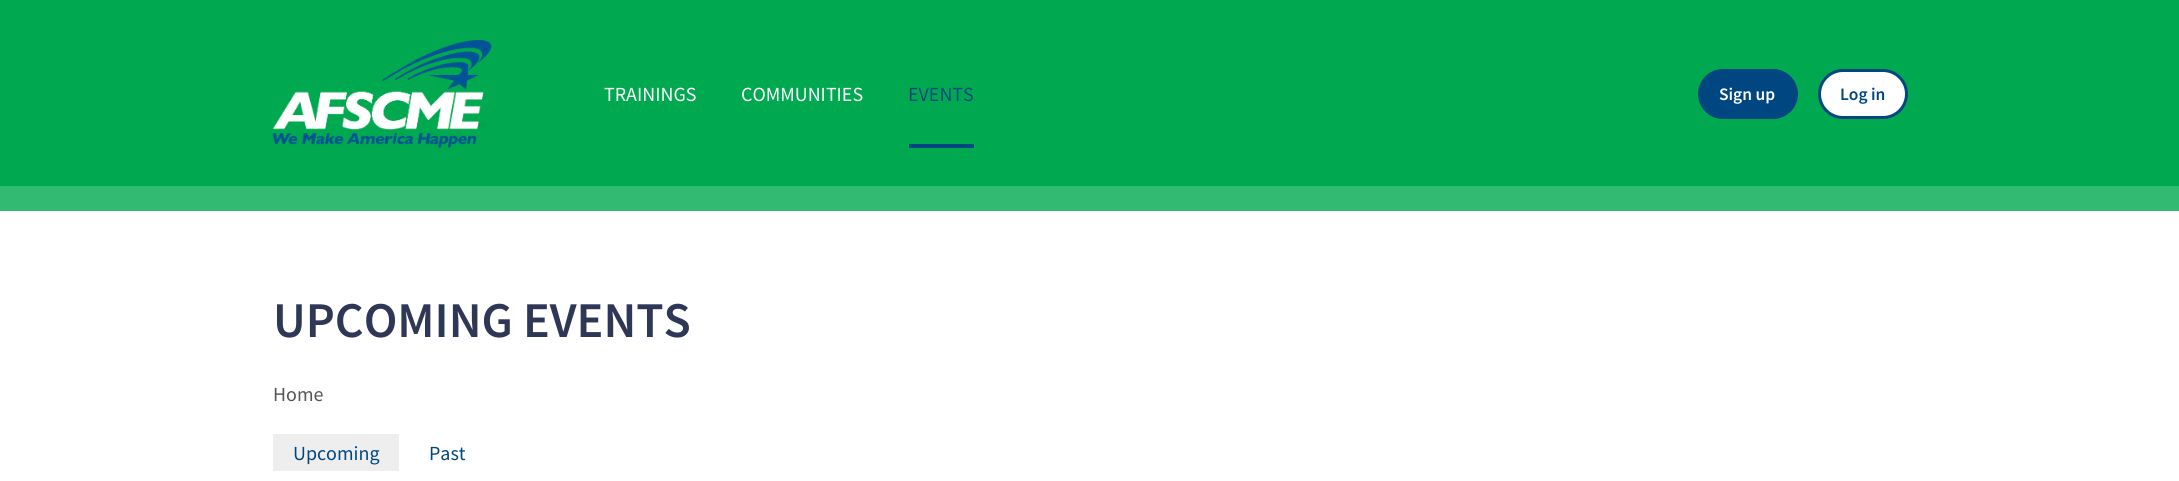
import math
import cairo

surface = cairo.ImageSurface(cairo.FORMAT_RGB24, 2179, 481)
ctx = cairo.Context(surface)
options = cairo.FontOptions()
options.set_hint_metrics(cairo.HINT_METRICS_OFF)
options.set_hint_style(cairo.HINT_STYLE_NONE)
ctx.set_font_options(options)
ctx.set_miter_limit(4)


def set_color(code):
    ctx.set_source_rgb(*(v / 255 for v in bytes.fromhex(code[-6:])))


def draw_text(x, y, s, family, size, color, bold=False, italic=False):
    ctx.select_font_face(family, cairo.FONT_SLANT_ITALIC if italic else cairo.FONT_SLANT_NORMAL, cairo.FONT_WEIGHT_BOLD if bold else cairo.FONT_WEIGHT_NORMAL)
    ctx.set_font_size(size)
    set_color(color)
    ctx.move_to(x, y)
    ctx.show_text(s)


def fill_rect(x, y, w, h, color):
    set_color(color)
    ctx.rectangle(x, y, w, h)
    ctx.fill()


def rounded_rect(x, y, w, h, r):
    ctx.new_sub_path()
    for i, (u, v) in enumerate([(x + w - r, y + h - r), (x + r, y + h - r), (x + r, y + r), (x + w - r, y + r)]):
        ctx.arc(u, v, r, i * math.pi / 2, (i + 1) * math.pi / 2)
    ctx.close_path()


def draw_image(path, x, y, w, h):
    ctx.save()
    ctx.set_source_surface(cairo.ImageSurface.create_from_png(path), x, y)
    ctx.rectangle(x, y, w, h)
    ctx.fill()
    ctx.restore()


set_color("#ffffff")
ctx.paint()
fill_rect(0, 0, 2179, 186, "#00a94f")
fill_rect(0, 186, 2179, 25, "#33ba72")
draw_image("assets/img1.png", 272, 40, 220, 108)
draw_text(604, 101, "TRAININGS", "Source Sans Pro", 20, "#ffffff")
draw_text(741, 101, "COMMUNITIES", "Source Sans Pro", 20, "#ffffff")
draw_text(908, 101, "EVENTS", "Source Sans Pro", 20, "#004680")
fill_rect(909, 144, 65, 4, "#004680")
rounded_rect(1699.5, 70.5, 97, 47, 23.5)
ctx.fill_preserve()
ctx.set_line_width(3)
ctx.stroke()
draw_text(1719, 100, "Sign up", "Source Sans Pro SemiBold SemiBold", 17.5, "#ffffff")
rounded_rect(1819.5, 70.5, 87, 47, 23.5)
ctx.fill_preserve()
set_color("#004680")
ctx.stroke()
draw_text(1840, 100, "Log in", "Source Sans Pro SemiBold SemiBold", 17.5, "#004680")
draw_text(273, 337, "UPCOMING EVENTS", "Source Sans Pro SemiBold SemiBold", 50, "#2f3756")
draw_text(273, 401, "Home", "Source Sans Pro", 20, "#555555")
fill_rect(273, 434, 126, 37, "#eeeeee")
draw_text(293, 460, "Upcoming", "Source Sans Pro", 20, "#004680")
draw_text(429, 460, "Past", "Source Sans Pro", 20, "#004680")
surface.write_to_png("output.png")
